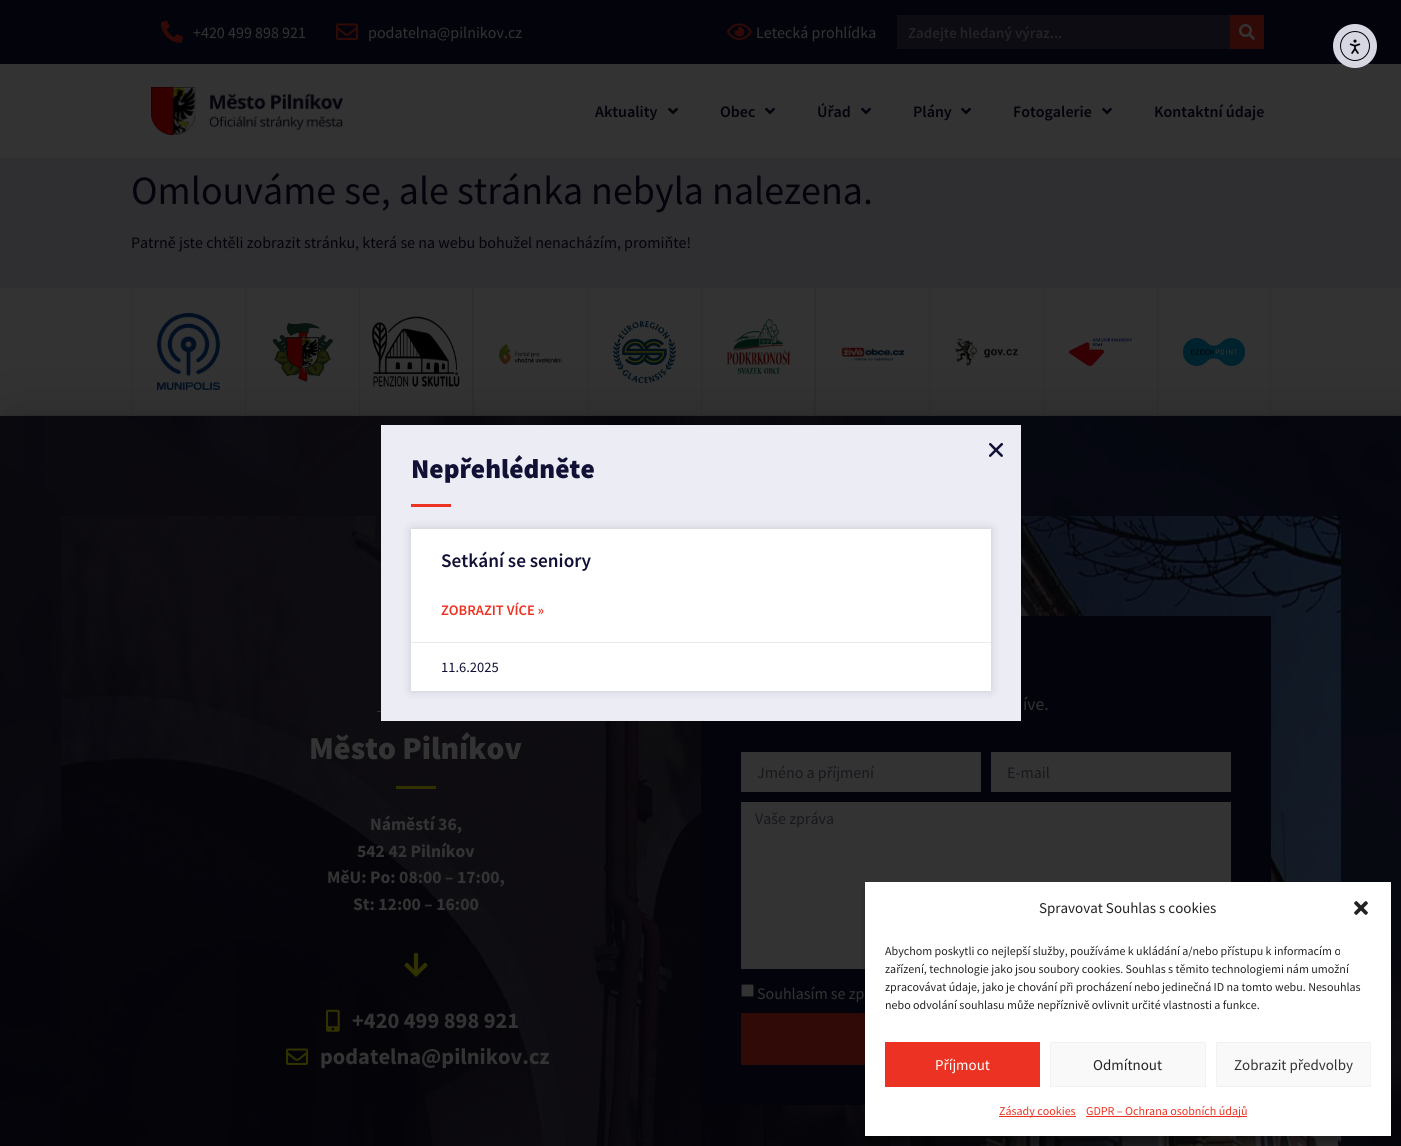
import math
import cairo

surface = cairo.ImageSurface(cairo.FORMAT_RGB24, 1401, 1146)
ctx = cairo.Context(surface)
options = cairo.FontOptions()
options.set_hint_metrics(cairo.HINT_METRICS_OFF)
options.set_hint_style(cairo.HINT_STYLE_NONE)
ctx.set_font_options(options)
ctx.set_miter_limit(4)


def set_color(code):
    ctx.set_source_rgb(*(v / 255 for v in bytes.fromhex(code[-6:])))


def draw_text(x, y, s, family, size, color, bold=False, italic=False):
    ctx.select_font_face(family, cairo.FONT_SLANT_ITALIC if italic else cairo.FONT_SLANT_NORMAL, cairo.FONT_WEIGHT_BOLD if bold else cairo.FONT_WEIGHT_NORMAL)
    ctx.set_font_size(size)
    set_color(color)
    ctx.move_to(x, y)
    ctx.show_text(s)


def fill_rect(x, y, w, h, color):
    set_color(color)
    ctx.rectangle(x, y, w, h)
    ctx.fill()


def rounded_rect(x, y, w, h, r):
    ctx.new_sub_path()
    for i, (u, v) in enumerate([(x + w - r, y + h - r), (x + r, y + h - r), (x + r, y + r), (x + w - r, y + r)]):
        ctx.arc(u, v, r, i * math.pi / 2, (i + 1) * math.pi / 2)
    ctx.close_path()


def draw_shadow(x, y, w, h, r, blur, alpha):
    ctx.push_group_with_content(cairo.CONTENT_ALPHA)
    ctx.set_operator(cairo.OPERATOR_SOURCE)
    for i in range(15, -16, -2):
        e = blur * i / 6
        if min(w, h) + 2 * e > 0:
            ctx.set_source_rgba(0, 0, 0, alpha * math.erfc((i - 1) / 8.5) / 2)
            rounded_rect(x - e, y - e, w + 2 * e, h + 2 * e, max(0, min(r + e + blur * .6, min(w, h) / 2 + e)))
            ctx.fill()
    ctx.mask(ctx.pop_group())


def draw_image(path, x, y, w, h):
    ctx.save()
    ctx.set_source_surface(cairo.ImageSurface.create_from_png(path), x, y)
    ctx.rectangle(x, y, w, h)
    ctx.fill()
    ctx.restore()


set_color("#2f2f31")
ctx.paint()
fill_rect(0, 0, 1401, 64, "#03030b")
draw_image("assets/img1.png", 161, 20, 22, 23)
draw_text(193, 38, "+420 499 898 921", "Source Sans Pro", 16, "#333333")
draw_image("assets/img2.png", 336, 23, 22, 17)
draw_text(368, 38, "podatelna@pilnikov.cz", "Source Sans Pro", 16, "#333333")
draw_image("assets/img3.png", 727, 23, 25, 17)
draw_text(756, 38, "Letecká prohlídka", "Source Sans Pro", 16, "#333333")
fill_rect(897, 15, 333, 34, "#0c0c12")
draw_text(908, 38, "Zadejte hledaný výraz...", "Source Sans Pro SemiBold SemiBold", 15, "#232326")
fill_rect(1230, 15, 34, 34, "#2f0a07")
draw_image("assets/img4.png", 1239, 24, 16, 16)
fill_rect(0, 64, 1401, 94, "#333333")
draw_image("assets/img5.png", 151, 87, 192, 48)
draw_text(595, 117, "Aktuality", "Source Sans Pro SemiBold SemiBold", 16, "#03030b")
draw_image("assets/img6.png", 668, 107, 10, 8)
draw_text(720, 117, "Obec", "Source Sans Pro SemiBold SemiBold", 16, "#03030b")
draw_image("assets/img6.png", 765, 107, 10, 8)
draw_text(817, 117, "Úřad", "Source Sans Pro SemiBold SemiBold", 16, "#03030b")
draw_image("assets/img6.png", 861, 107, 10, 8)
draw_text(913, 117, "Plány", "Source Sans Pro SemiBold SemiBold", 16, "#03030b")
draw_image("assets/img6.png", 961, 107, 10, 8)
draw_text(1013, 117, "Fotogalerie", "Source Sans Pro SemiBold SemiBold", 16, "#03030b")
draw_image("assets/img6.png", 1102, 107, 10, 8)
draw_text(1154, 117, "Kontaktní údaje", "Source Sans Pro SemiBold SemiBold", 16, "#03030b")
set_color("#d7d7e4")
ctx.new_path()
ctx.arc(1355, 46, 22, 0, 2 * math.pi)
ctx.fill()
ctx.arc(1355, 46, 14.5, 0, 2 * math.pi)
set_color("#000000")
ctx.set_line_width(1)
ctx.stroke()
draw_image("assets/img7.png", 1349, 39, 12, 15)
draw_text(131, 204, "Omlouváme se, ale stránka nebyla nalezena.", "Source Sans Pro", 40, "#03030b")
draw_text(131, 248, "Patrně jste chtěli zobrazit stránku, která se na webu bohužel nenacházím, promiňte!", "Source Sans Pro", 16, "#03030b")
fill_rect(0, 288, 1401, 127, "#333333")
fill_rect(131, 288, 1, 127, "#2f2f31")
draw_image("assets/img9.png", 157, 313, 63, 77)
fill_rect(245, 288, 1, 127, "#2f2f31")
draw_image("assets/img10.png", 272, 323, 62, 59)
fill_rect(472, 288, 2, 127, "#2f2f31")
fill_rect(359, 288, 1, 127, "#2f2f31")
draw_image("assets/img11.png", 372, 316, 88, 71)
draw_image("assets/img12.png", 499, 344, 63, 20)
fill_rect(587, 288, 1, 127, "#2f2f31")
draw_image("assets/img13.png", 613, 321, 63, 62)
fill_rect(814, 288, 2, 127, "#2f2f31")
fill_rect(701, 288, 1, 127, "#2f2f31")
draw_image("assets/img14.png", 727, 318, 64, 56)
draw_image("assets/img15.png", 841, 347, 63, 14)
fill_rect(929, 288, 1, 127, "#2f2f31")
draw_image("assets/img16.png", 955, 338, 63, 28)
fill_rect(1043, 288, 1, 127, "#2f2f31")
draw_image("assets/img17.png", 1069, 338, 63, 28)
fill_rect(1270, 288, 1, 127, "#2f2f31")
fill_rect(1157, 288, 1, 127, "#2f2f31")
draw_image("assets/img18.png", 1183, 338, 62, 28)
set_color("#000108")
draw_shadow(12, 429, 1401, 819, 0, 34, 0.28)
draw_image("assets/img19.png", 0, 416, 1401, 730)
draw_image("assets/img20.png", 61, 516, 1280, 630)
fill_rect(701, 616, 570, 489, "#03030b")
fill_rect(381, 425, 640, 296, "#ececf5")
draw_image("assets/img8.png", 988, 442, 16, 15)
draw_text(411, 478, "Nepřehlédněte", "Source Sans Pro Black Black", 27.25, "#111136")
fill_rect(411, 504, 40, 3, "#ec3323")
set_color("#000000")
draw_shadow(411, 529, 580, 162, 0, 5, 0.15)
fill_rect(411, 529, 580, 162, "#ffffff")
draw_text(441, 567, "Setkání se seniory", "Source Sans Pro SemiBold SemiBold", 19.25, "#111136")
draw_text(441, 615, "ZOBRAZIT VÍCE »", "Source Sans Pro SemiBold SemiBold", 14.5, "#ec3323")
fill_rect(411, 642, 580, 1, "#eaeaea")
draw_text(441, 672, "11.6.2025", "Source Sans Pro", 14.5, "#111136")
draw_image("assets/img21.png", 377, 711, 4, 1)
draw_text(309, 759, "Město Pilníkov", "Source Sans Pro Black Black", 32, "#333333")
fill_rect(396, 786, 40, 3, "#323200")
draw_text(370, 830, "Náměstí 36,", "Source Sans Pro", 17.6, "#333333", bold=True)
draw_text(357, 857, "542 42 Pilníkov", "Source Sans Pro", 17.6, "#333333", bold=True)
draw_text(327, 883, "MěU: Po: 08:00 – 17:00,", "Source Sans Pro", 17.6, "#333333", bold=True)
draw_text(353, 910, "St: 12:00 – 16:00", "Source Sans Pro", 17.6, "#333333", bold=True)
draw_image("assets/img22.png", 404, 953, 24, 24)
draw_image("assets/img23.png", 326, 1009, 14, 23)
draw_text(352, 1028, "+420 499 898 921", "Source Sans Pro", 22.4, "#333333", bold=True)
draw_image("assets/img24.png", 286, 1048, 22, 17)
draw_text(320, 1064, "podatelna@pilnikov.cz", "Source Sans Pro", 22.4, "#333333", bold=True)
draw_text(1023, 710, "íve.", "Source Sans Pro", 17.6, "#333333")
fill_rect(741, 752, 240, 40, "#333333")
draw_text(757, 778, "Jméno a příjmení", "Source Sans Pro", 16, "#17171c")
fill_rect(991, 752, 240, 40, "#333333")
draw_text(1007, 778, "E-mail", "Source Sans Pro", 16, "#17171c")
fill_rect(741, 802, 490, 167, "#333333")
draw_text(755, 824, "Vaše zpráva", "Source Sans Pro", 16, "#17171c")
set_color("#333333")
rounded_rect(741.5, 984.5, 12, 12, 1.5)
ctx.fill_preserve()
set_color("#181818")
ctx.stroke()
draw_text(757, 999, "Souhlasím se zp", "Source Sans Pro", 16, "#333333")
fill_rect(741, 1013, 124, 52, "#2f0a07")
set_color("#000000")
draw_shadow(865, 888, 526, 254, 0, 3, 0.23)
fill_rect(865, 882, 526, 254, "#ffffff")
draw_text(1039, 913, "Spravovat Souhlas s cookies", "Source Sans Pro", 15, "#232326")
draw_image("assets/img25.png", 1354, 901, 14, 14)
draw_text(885, 955, "Abychom poskytli co nejlepší služby, používáme k ukládání a/nebo přístupu k informacím o", "Source Sans Pro", 12, "#232326")
draw_text(885, 973, "zařízení, technologie jako jsou soubory cookies. Souhlas s těmito technologiemi nám umožní", "Source Sans Pro", 12, "#232326")
draw_text(885, 991, "zpracovávat údaje, jako je chování při procházení nebo jedinečná ID na tomto webu. Nesouhlas", "Source Sans Pro", 12, "#232326")
draw_text(885, 1009, "nebo odvolání souhlasu může nepříznivě ovlivnit určité vlastnosti a funkce.", "Source Sans Pro", 12, "#232326")
fill_rect(885, 1042, 155, 45, "#ec3323")
draw_text(935, 1070, "Příjmout", "Source Sans Pro", 15, "#ffffff")
set_color("#f9f9f9")
ctx.rectangle(1050.5, 1042.5, 155, 44)
ctx.fill_preserve()
set_color("#f2f2f2")
ctx.stroke()
draw_text(1093, 1070, "Odmítnout", "Source Sans Pro", 15, "#232326")
set_color("#f9f9f9")
ctx.rectangle(1216.5, 1042.5, 154, 44)
ctx.fill_preserve()
set_color("#f2f2f2")
ctx.stroke()
draw_text(1234, 1070, "Zobrazit předvolby", "Source Sans Pro", 15, "#333333")
fill_rect(999, 1116, 77, 1, "#ec3323")
draw_text(999, 1115, "Zásady cookies", "Source Sans Pro", 12, "#ec3323")
fill_rect(1086, 1116, 161, 1, "#ec3323")
draw_text(1086, 1115, "GDPR – Ochrana osobních údajů", "Source Sans Pro", 12, "#ec3323")
surface.write_to_png("output.png")
